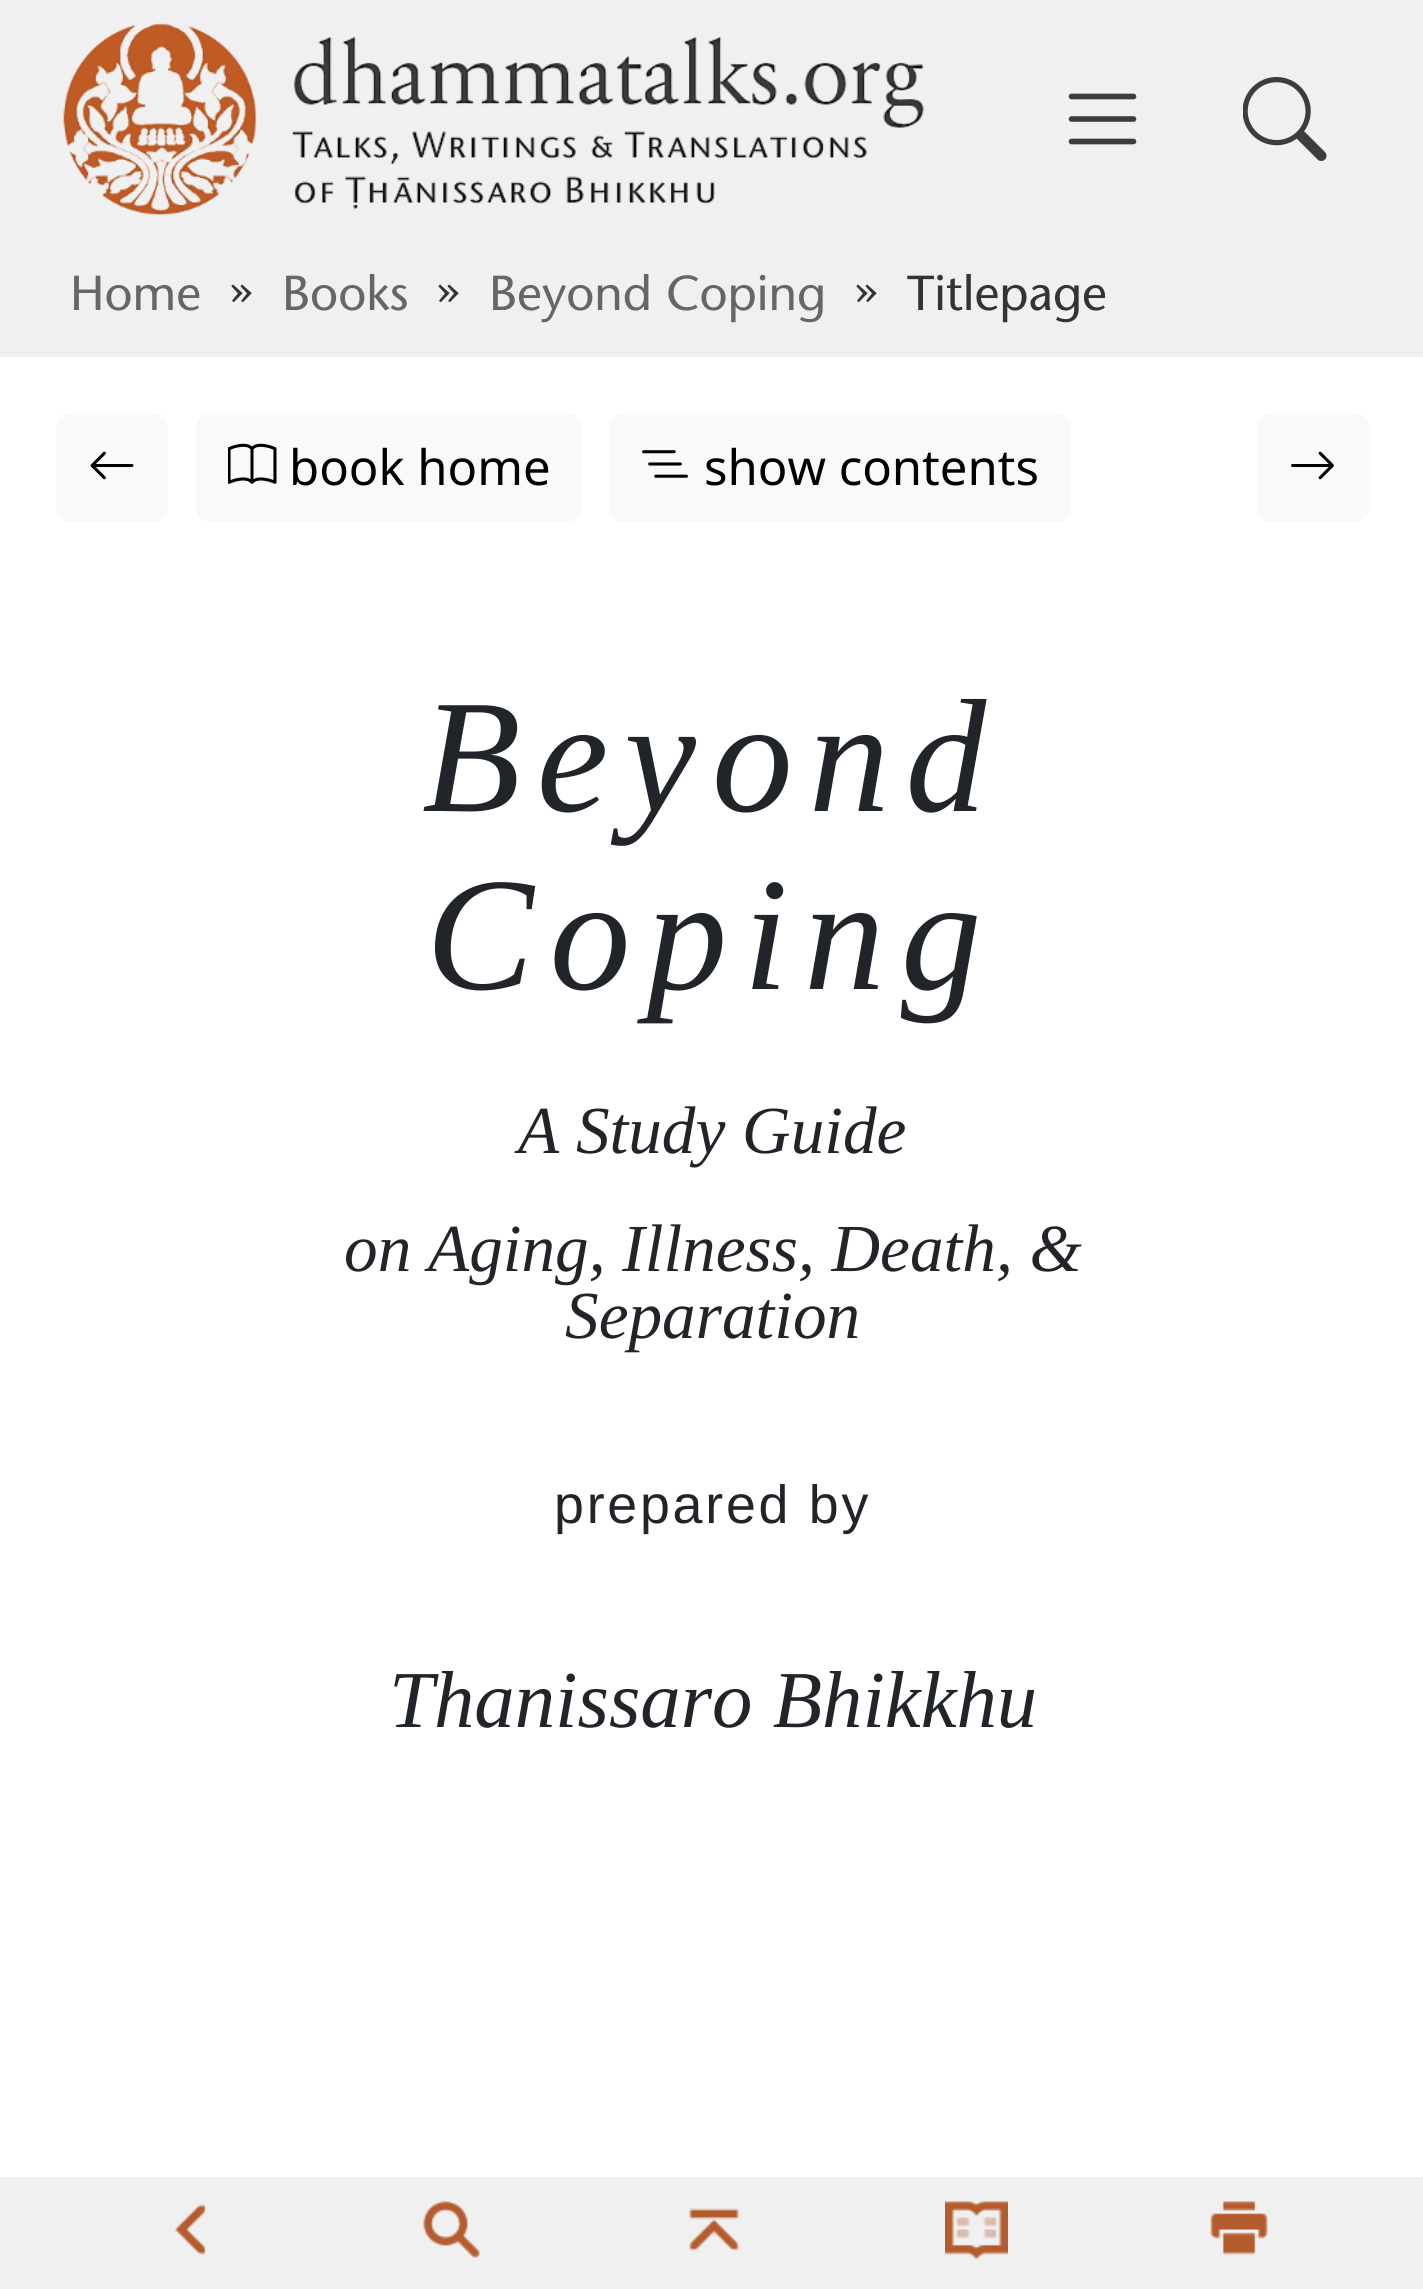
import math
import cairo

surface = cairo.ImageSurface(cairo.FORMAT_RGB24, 1423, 2289)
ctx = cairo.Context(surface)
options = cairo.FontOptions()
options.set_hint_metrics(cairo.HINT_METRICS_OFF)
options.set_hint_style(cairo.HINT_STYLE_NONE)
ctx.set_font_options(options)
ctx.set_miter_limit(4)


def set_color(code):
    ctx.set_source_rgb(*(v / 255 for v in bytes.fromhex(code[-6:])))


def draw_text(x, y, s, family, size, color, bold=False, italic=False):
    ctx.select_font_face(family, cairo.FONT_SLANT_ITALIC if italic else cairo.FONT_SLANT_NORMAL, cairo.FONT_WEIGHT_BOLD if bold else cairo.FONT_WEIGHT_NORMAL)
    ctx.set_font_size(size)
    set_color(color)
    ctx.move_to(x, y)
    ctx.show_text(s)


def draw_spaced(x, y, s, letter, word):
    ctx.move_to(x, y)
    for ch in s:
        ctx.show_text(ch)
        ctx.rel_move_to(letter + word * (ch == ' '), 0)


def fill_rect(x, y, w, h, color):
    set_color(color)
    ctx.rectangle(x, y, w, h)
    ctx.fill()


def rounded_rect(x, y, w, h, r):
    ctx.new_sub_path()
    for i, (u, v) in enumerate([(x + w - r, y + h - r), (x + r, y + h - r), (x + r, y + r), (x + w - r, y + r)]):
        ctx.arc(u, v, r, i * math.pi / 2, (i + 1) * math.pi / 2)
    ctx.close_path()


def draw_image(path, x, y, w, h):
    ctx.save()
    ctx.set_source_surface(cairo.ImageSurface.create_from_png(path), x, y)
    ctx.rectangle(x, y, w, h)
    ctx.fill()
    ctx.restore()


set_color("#ffffff")
ctx.paint()
fill_rect(0, 0, 1423, 357, "#f0f0f0")
draw_image("assets/img1.png", 63, 23, 861, 193)
ctx.new_path()
ctx.move_to(1071.5, 96.5)
ctx.line_to(1133.5, 96.5)
ctx.move_to(1071.5, 119)
ctx.line_to(1133.5, 119)
ctx.move_to(1071.5, 141.5)
ctx.line_to(1133.5, 141.5)
set_color("#3d3d3d")
ctx.set_line_width(5.6)
ctx.set_line_cap(cairo.LINE_CAP_ROUND)
ctx.stroke()
draw_image("assets/img2.png", 1243, 77, 84, 84)
draw_text(70, 310, "Home", "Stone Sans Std", 49, "#666666")
draw_text(229, 305, "»", "Stone Sans Std", 49, "#333333")
draw_text(282, 310, "Books", "Stone Sans Std", 49, "#666666")
draw_text(436, 305, "»", "Stone Sans Std", 49, "#333333")
draw_text(489, 310, "Beyond Coping", "Stone Sans Std", 49, "#666666")
draw_text(854, 305, "»", "Stone Sans Std", 49, "#333333")
ctx.save()
ctx.rectangle(907, 252, 199, 98)
ctx.clip()
draw_text(907, 310, "Titlepage", "Stone Sans Std", 49, "#333333")
ctx.restore()
set_color("#f8f9fa")
rounded_rect(56, 413, 112, 109, 14)
ctx.fill()
draw_image("assets/img3.png", 90, 451, 44, 29)
rounded_rect(196, 413, 385, 109, 14)
ctx.fill()
draw_image("assets/img4.png", 228, 443, 49, 41)
draw_text(289, 485, "book home", "Noto Sans", 49, "#000000")
set_color("#f8f9fa")
rounded_rect(609, 413, 462, 109, 14)
ctx.fill()
draw_image("assets/img5.png", 642, 450, 46, 28)
draw_text(704, 485, "show contents", "Noto Sans", 49, "#000000")
set_color("#f8f9fa")
rounded_rect(1257, 413, 112, 109, 14)
ctx.fill()
draw_image("assets/img6.png", 1291, 451, 43, 29)
ctx.select_font_face("Liberation Serif", cairo.FONT_SLANT_ITALIC)
ctx.set_font_size(161.5)
set_color("#212529")
draw_spaced(422, 811, "Beyond", 16, 0)
draw_spaced(426, 989, "Coping", 16, 0)
draw_text(518, 1153, "A Study Guide", "Liberation Serif", 67.25, "#212529", italic=True)
draw_text(344, 1271, "on Aging, Illness, Death, &", "Liberation Serif", 67.25, "#212529", italic=True)
draw_text(565, 1338, "Separation", "Liberation Serif", 67.25, "#212529", italic=True)
ctx.select_font_face("Liberation Sans")
ctx.set_font_size(53.75)
draw_spaced(554, 1523, "prepared by", 2.75, 0)
draw_text(389, 1727, "Thanissaro Bhikkhu", "Liberation Serif", 80.75, "#212529", italic=True)
fill_rect(0, 2177, 1423, 112, "#f0f0f0")
draw_image("assets/img7.png", 174, 2204, 32, 51)
draw_image("assets/img8.png", 423, 2201, 57, 57)
draw_image("assets/img9.png", 689, 2208, 50, 43)
draw_image("assets/img10.png", 945, 2201, 63, 59)
draw_image("assets/img11.png", 1210, 2201, 58, 54)
surface.write_to_png("output.png")
